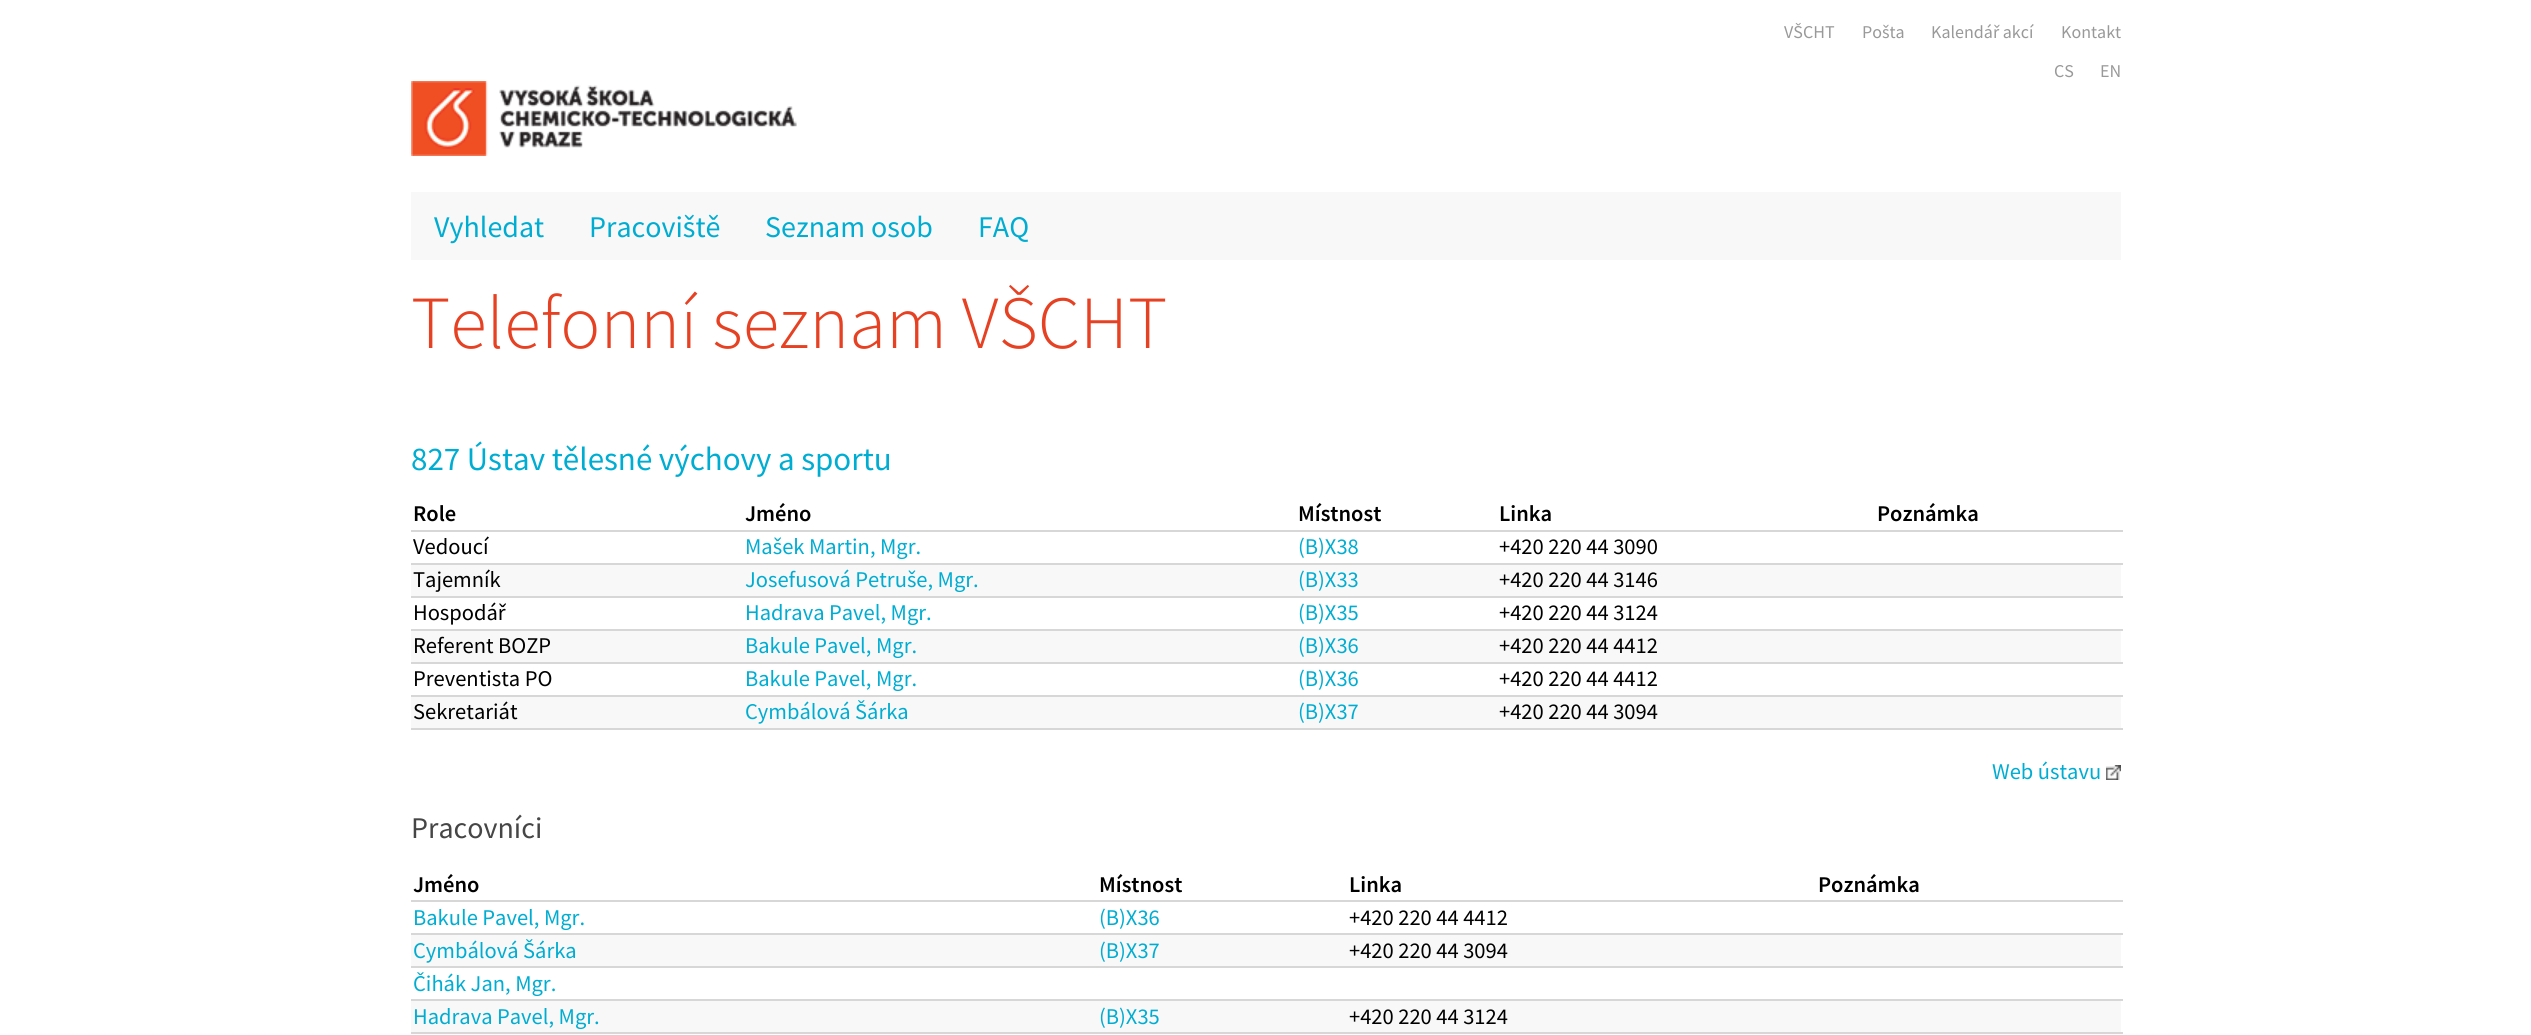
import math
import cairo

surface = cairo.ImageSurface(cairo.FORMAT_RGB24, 2531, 1035)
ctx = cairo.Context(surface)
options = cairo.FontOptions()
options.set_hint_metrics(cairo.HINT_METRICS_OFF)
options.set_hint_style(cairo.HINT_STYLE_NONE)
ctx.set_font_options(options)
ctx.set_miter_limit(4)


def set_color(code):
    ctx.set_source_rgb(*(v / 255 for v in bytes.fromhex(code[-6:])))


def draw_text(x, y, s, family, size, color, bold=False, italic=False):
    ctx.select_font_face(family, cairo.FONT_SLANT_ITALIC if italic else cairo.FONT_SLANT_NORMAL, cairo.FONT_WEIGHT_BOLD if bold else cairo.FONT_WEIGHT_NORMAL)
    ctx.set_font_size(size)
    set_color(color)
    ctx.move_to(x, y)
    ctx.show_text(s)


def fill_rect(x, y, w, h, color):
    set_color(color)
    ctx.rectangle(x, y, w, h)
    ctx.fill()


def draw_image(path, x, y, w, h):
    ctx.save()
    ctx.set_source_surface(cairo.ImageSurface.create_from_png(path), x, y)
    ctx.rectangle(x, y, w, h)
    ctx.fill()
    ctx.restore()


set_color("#ffffff")
ctx.paint()
draw_text(1784, 38, "VŠCHT", "Source Sans Pro", 18, "#999999")
draw_text(1862, 38, "Pošta", "Source Sans Pro", 18, "#999999")
draw_text(1931, 38, "Kalendář akcí", "Source Sans Pro", 18, "#999999")
draw_text(2061, 38, "Kontakt", "Source Sans Pro", 18, "#999999")
draw_text(2054, 77, "CS", "Source Sans Pro", 18, "#999999")
draw_text(2100, 77, "EN", "Source Sans Pro", 18, "#999999")
draw_image("assets/img1.png", 411, 81, 386, 75)
fill_rect(411, 192, 1710, 68, "#f8f8f8")
draw_text(434, 237, "Vyhledat", "Source Sans Pro", 30, "#00add2")
draw_text(589, 237, "Pracoviště", "Source Sans Pro", 30, "#00add2")
draw_text(765, 237, "Seznam osob", "Source Sans Pro", 30, "#00add2")
draw_text(978, 237, "FAQ", "Source Sans Pro", 30, "#00add2")
draw_text(411, 348, "Telefonní seznam VŠCHT", "Source Sans Pro Light", 75, "#e64122")
draw_text(411, 470, "827 Ústav tělesné výchovy a sportu", "Source Sans Pro", 33, "#00add2")
fill_rect(411, 530, 1712, 2, "#d7d7d7")
draw_text(413, 521, "Role", "Source Sans Pro SemiBold", 22.5, "#000000")
draw_text(745, 521, "Jméno", "Source Sans Pro SemiBold", 22.5, "#000000")
draw_text(1298, 521, "Místnost", "Source Sans Pro SemiBold", 22.5, "#000000")
draw_text(1499, 521, "Linka", "Source Sans Pro SemiBold", 22.5, "#000000")
draw_text(1877, 521, "Poznámka", "Source Sans Pro SemiBold", 22.5, "#000000")
fill_rect(411, 563, 1712, 2, "#d7d7d7")
draw_text(413, 554, "Vedoucí", "Source Sans Pro", 22.5, "#000000")
draw_text(745, 554, "Mašek Martin, Mgr.", "Source Sans Pro", 22.5, "#00add2")
draw_text(1298, 554, "(B)X38", "Source Sans Pro", 22.5, "#00add2")
draw_text(1499, 554, "+420 220 44 3090", "Source Sans Pro", 22.5, "#000000")
fill_rect(411, 565, 1710, 31, "#f8f8f8")
fill_rect(411, 596, 1712, 2, "#d7d7d7")
draw_text(413, 587, "Tajemník", "Source Sans Pro", 22.5, "#000000")
draw_text(745, 587, "Josefusová Petruše, Mgr.", "Source Sans Pro", 22.5, "#00add2")
draw_text(1298, 587, "(B)X33", "Source Sans Pro", 22.5, "#00add2")
draw_text(1499, 587, "+420 220 44 3146", "Source Sans Pro", 22.5, "#000000")
fill_rect(411, 629, 1712, 2, "#d7d7d7")
draw_text(413, 620, "Hospodář", "Source Sans Pro", 22.5, "#000000")
draw_text(745, 620, "Hadrava Pavel, Mgr.", "Source Sans Pro", 22.5, "#00add2")
draw_text(1298, 620, "(B)X35", "Source Sans Pro", 22.5, "#00add2")
draw_text(1499, 620, "+420 220 44 3124", "Source Sans Pro", 22.5, "#000000")
fill_rect(411, 631, 1710, 31, "#f8f8f8")
fill_rect(411, 662, 1712, 2, "#d7d7d7")
draw_text(413, 653, "Referent BOZP", "Source Sans Pro", 22.5, "#000000")
draw_text(745, 653, "Bakule Pavel, Mgr.", "Source Sans Pro", 22.5, "#00add2")
draw_text(1298, 653, "(B)X36", "Source Sans Pro", 22.5, "#00add2")
draw_text(1499, 653, "+420 220 44 4412", "Source Sans Pro", 22.5, "#000000")
fill_rect(411, 695, 1712, 2, "#d7d7d7")
draw_text(413, 686, "Preventista PO", "Source Sans Pro", 22.5, "#000000")
draw_text(745, 686, "Bakule Pavel, Mgr.", "Source Sans Pro", 22.5, "#00add2")
draw_text(1298, 686, "(B)X36", "Source Sans Pro", 22.5, "#00add2")
draw_text(1499, 686, "+420 220 44 4412", "Source Sans Pro", 22.5, "#000000")
fill_rect(411, 697, 1710, 31, "#f8f8f8")
fill_rect(411, 728, 1712, 2, "#d7d7d7")
draw_text(413, 719, "Sekretariát", "Source Sans Pro", 22.5, "#000000")
draw_text(745, 719, "Cymbálová Šárka", "Source Sans Pro", 22.5, "#00add2")
draw_text(1298, 719, "(B)X37", "Source Sans Pro", 22.5, "#00add2")
draw_text(1499, 719, "+420 220 44 3094", "Source Sans Pro", 22.5, "#000000")
draw_text(1992, 779, "Web ústavu", "Source Sans Pro", 22.5, "#00add2")
draw_image("assets/img2.png", 2106, 765, 15, 15)
draw_text(411, 838, "Pracovníci", "Source Sans Pro", 30, "#464646")
fill_rect(411, 900, 1712, 2, "#d7d7d7")
draw_text(413, 892, "Jméno", "Source Sans Pro SemiBold", 22.5, "#000000")
draw_text(1099, 892, "Místnost", "Source Sans Pro SemiBold", 22.5, "#000000")
draw_text(1349, 892, "Linka", "Source Sans Pro SemiBold", 22.5, "#000000")
draw_text(1818, 892, "Poznámka", "Source Sans Pro SemiBold", 22.5, "#000000")
fill_rect(411, 933, 1712, 2, "#d7d7d7")
draw_text(413, 925, "Bakule Pavel, Mgr.", "Source Sans Pro", 22.5, "#00add2")
draw_text(1099, 925, "(B)X36", "Source Sans Pro", 22.5, "#00add2")
draw_text(1349, 925, "+420 220 44 4412", "Source Sans Pro", 22.5, "#000000")
fill_rect(411, 935, 1710, 31, "#f8f8f8")
fill_rect(411, 966, 1712, 2, "#d7d7d7")
draw_text(413, 958, "Cymbálová Šárka", "Source Sans Pro", 22.5, "#00add2")
draw_text(1099, 958, "(B)X37", "Source Sans Pro", 22.5, "#00add2")
draw_text(1349, 958, "+420 220 44 3094", "Source Sans Pro", 22.5, "#000000")
fill_rect(411, 999, 1712, 2, "#d7d7d7")
draw_text(413, 991, "Čihák Jan, Mgr.", "Source Sans Pro", 22.5, "#00add2")
fill_rect(411, 1001, 1710, 31, "#f8f8f8")
fill_rect(411, 1032, 1712, 2, "#d7d7d7")
draw_text(413, 1024, "Hadrava Pavel, Mgr.", "Source Sans Pro", 22.5, "#00add2")
draw_text(1099, 1024, "(B)X35", "Source Sans Pro", 22.5, "#00add2")
draw_text(1349, 1024, "+420 220 44 3124", "Source Sans Pro", 22.5, "#000000")
surface.write_to_png("output.png")
